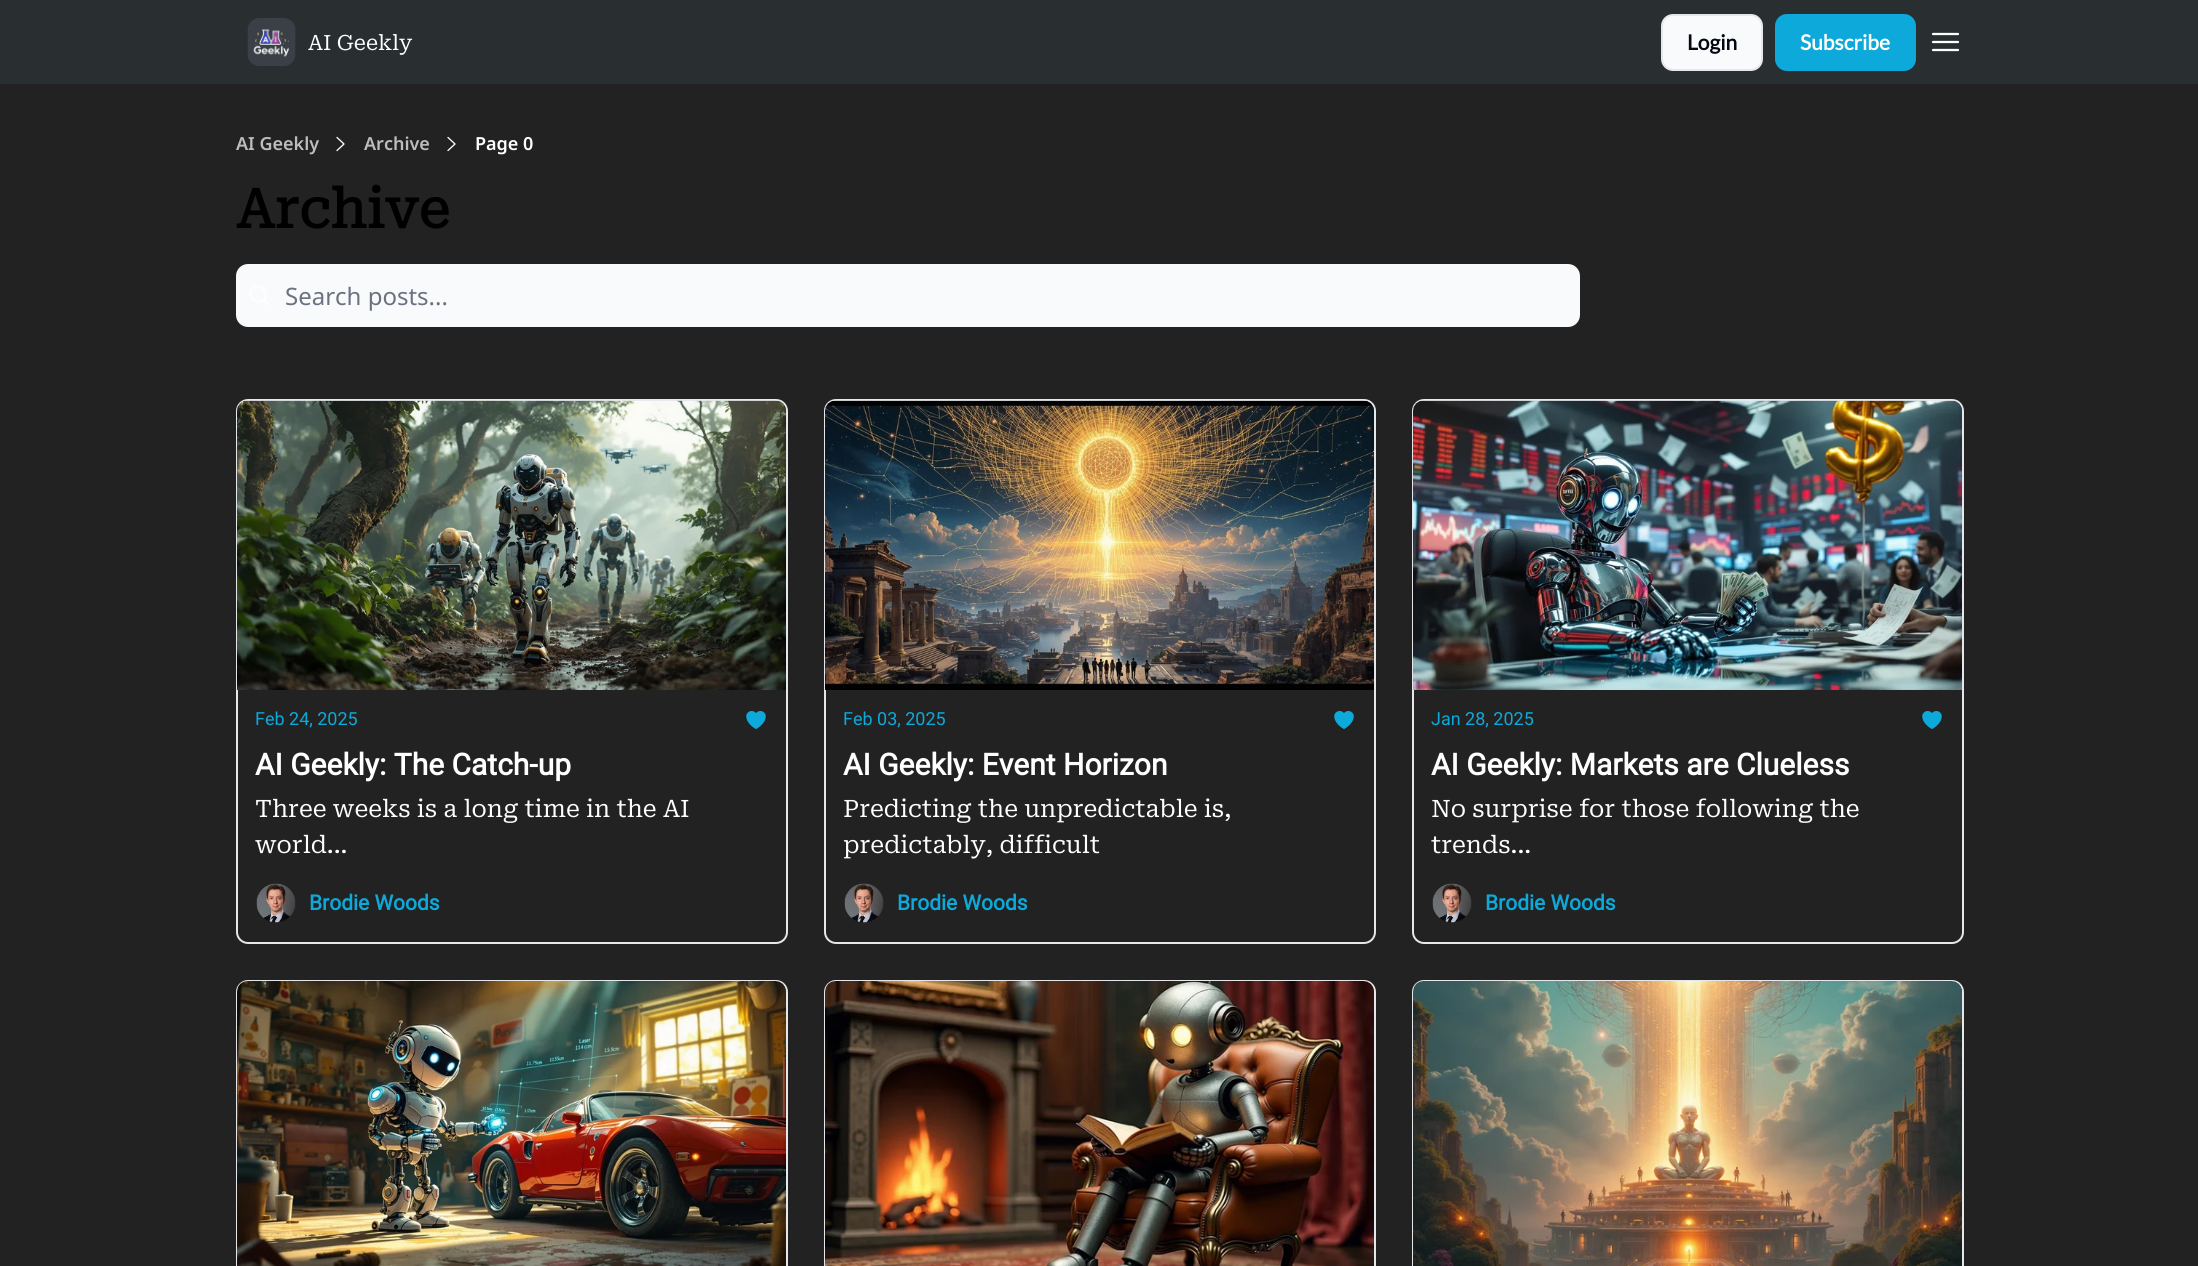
import math
import cairo

surface = cairo.ImageSurface(cairo.FORMAT_RGB24, 2198, 1266)
ctx = cairo.Context(surface)
options = cairo.FontOptions()
options.set_hint_metrics(cairo.HINT_METRICS_OFF)
options.set_hint_style(cairo.HINT_STYLE_NONE)
ctx.set_font_options(options)
ctx.set_miter_limit(4)


def set_color(code):
    ctx.set_source_rgb(*(v / 255 for v in bytes.fromhex(code[-6:])))


def draw_text(x, y, s, family, size, color, bold=False, italic=False):
    ctx.select_font_face(family, cairo.FONT_SLANT_ITALIC if italic else cairo.FONT_SLANT_NORMAL, cairo.FONT_WEIGHT_BOLD if bold else cairo.FONT_WEIGHT_NORMAL)
    ctx.set_font_size(size)
    set_color(color)
    ctx.move_to(x, y)
    ctx.show_text(s)


def fill_rect(x, y, w, h, color):
    set_color(color)
    ctx.rectangle(x, y, w, h)
    ctx.fill()


def rounded_rect(x, y, w, h, r):
    ctx.new_sub_path()
    for i, (u, v) in enumerate([(x + w - r, y + h - r), (x + r, y + h - r), (x + r, y + r), (x + w - r, y + r)]):
        ctx.arc(u, v, r, i * math.pi / 2, (i + 1) * math.pi / 2)
    ctx.close_path()


def draw_image(path, x, y, w, h):
    ctx.save()
    ctx.set_source_surface(cairo.ImageSurface.create_from_png(path), x, y)
    ctx.rectangle(x, y, w, h)
    ctx.fill()
    ctx.restore()


set_color("#292f31")
ctx.paint()
draw_image("assets/img1.png", 247, 18, 49, 48)
draw_text(308, 50, "AI Geekly", "Roboto Serif", 21, "#ffffff")
set_color("#f9fafb")
rounded_rect(1662, 15, 100, 55, 11)
ctx.fill_preserve()
set_color("#e5e7eb")
ctx.stroke()
draw_text(1687, 50, "Login", "Lato", 21, "#030712", bold=True)
set_color("#0da9da")
rounded_rect(1776, 15, 139, 55, 11)
ctx.fill_preserve()
ctx.stroke()
draw_text(1800, 50, "Subscribe", "Lato", 21, "#ffffff", bold=True)
ctx.new_path()
ctx.move_to(1933, 34)
ctx.line_to(1958, 34)
ctx.move_to(1933, 42)
ctx.line_to(1958, 42)
ctx.move_to(1933, 50)
ctx.line_to(1958, 50)
ctx.set_line_width(2.2)
ctx.set_line_cap(cairo.LINE_CAP_ROUND)
ctx.set_line_join(cairo.LINE_JOIN_ROUND)
ctx.stroke()
fill_rect(0, 84, 2198, 1182, "#222222")
draw_text(236, 150, "AI Geekly", "Noto Sans SemiBold", 18, "#bdbdbd")
ctx.new_path()
ctx.move_to(337, 137.5)
ctx.line_to(344, 144)
ctx.line_to(337, 150.5)
set_color("#ffffff")
ctx.set_line_width(1.3)
ctx.stroke()
draw_text(364, 150, "Archive", "Noto Sans SemiBold", 18, "#bdbdbd")
ctx.new_path()
ctx.move_to(448, 137.5)
ctx.line_to(455, 144)
ctx.line_to(448, 150.5)
set_color("#ffffff")
ctx.stroke()
draw_text(475, 150, "Page 0", "Noto Sans SemiBold", 18, "#ffffff")
draw_text(236, 228, "Archive", "Roboto Serif", 54, "#000000", bold=True)
set_color("#f9fafb")
rounded_rect(237, 265, 1342, 61, 11)
ctx.fill_preserve()
ctx.set_line_width(2)
ctx.set_line_cap(cairo.LINE_CAP_BUTT)
ctx.set_line_join(cairo.LINE_JOIN_MITER)
ctx.stroke()
ctx.new_path()
ctx.move_to(268.5, 304.5)
ctx.line_to(263.5, 299.5)
ctx.move_to(263.5, 299.5)
ctx.curve_to(270.5, 292.5, 259.5, 281.5, 252.5, 288.5)
ctx.curve_to(245.5, 295.5, 256.5, 306.5, 263.5, 299.5)
ctx.close_path()
set_color("#ffffff")
ctx.set_line_width(1.5)
ctx.set_line_cap(cairo.LINE_CAP_ROUND)
ctx.set_line_join(cairo.LINE_JOIN_ROUND)
ctx.stroke()
draw_text(285, 305, "Search posts...", "Noto Sans", 24, "#6b7280")
rounded_rect(237, 400, 550, 543, 11)
set_color("#e5e7eb")
ctx.set_line_width(2)
ctx.set_line_cap(cairo.LINE_CAP_BUTT)
ctx.set_line_join(cairo.LINE_JOIN_MITER)
ctx.stroke()
draw_image("assets/img2.png", 237, 400, 549, 290)
draw_text(255, 725, "Feb 24, 2025", "Roboto", 18, "#0da9da")
draw_image("assets/img3.png", 746, 711, 20, 18)
draw_text(255, 775, "AI Geekly: The Catch-up", "Roboto", 30, "#ffffff", bold=True)
draw_text(255, 817, "Three weeks is a long time in the AI", "Roboto Serif", 24, "#ffffff")
draw_text(255, 853, "world...", "Roboto Serif", 24, "#ffffff")
draw_image("assets/img4.png", 256, 883, 40, 40)
draw_text(309, 910, "Brodie Woods", "Roboto", 21, "#0da9da", bold=True)
rounded_rect(825, 400, 550, 543, 11)
set_color("#e5e7eb")
ctx.stroke()
draw_image("assets/img5.png", 825, 400, 549, 290)
draw_text(843, 725, "Feb 03, 2025", "Roboto", 18, "#0da9da")
draw_image("assets/img3.png", 1334, 711, 20, 18)
draw_text(843, 775, "AI Geekly: Event Horizon", "Roboto", 30, "#ffffff", bold=True)
draw_text(843, 817, "Predicting the unpredictable is,", "Roboto Serif", 24, "#ffffff")
draw_text(843, 853, "predictably, difficult", "Roboto Serif", 24, "#ffffff")
draw_image("assets/img6.png", 844, 883, 40, 40)
draw_text(897, 910, "Brodie Woods", "Roboto", 21, "#0da9da", bold=True)
rounded_rect(1413, 400, 550, 543, 11)
set_color("#e5e7eb")
ctx.stroke()
draw_image("assets/img7.png", 1413, 400, 549, 290)
draw_text(1431, 725, "Jan 28, 2025", "Roboto", 18, "#0da9da")
draw_image("assets/img3.png", 1922, 711, 20, 18)
draw_text(1431, 775, "AI Geekly: Markets are Clueless", "Roboto", 30, "#ffffff", bold=True)
draw_text(1431, 817, "No surprise for those following the", "Roboto Serif", 24, "#ffffff")
draw_text(1431, 853, "trends...", "Roboto Serif", 24, "#ffffff")
draw_image("assets/img8.png", 1432, 883, 40, 40)
draw_text(1485, 910, "Brodie Woods", "Roboto", 21, "#0da9da", bold=True)
rounded_rect(237, 981, 550, 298, 11)
set_color("#e5e7eb")
ctx.stroke()
draw_image("assets/img9.png", 237, 981, 549, 285)
rounded_rect(825, 981, 550, 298, 11)
ctx.stroke()
draw_image("assets/img10.png", 825, 981, 549, 285)
rounded_rect(1413, 981, 550, 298, 11)
ctx.stroke()
draw_image("assets/img11.png", 1413, 981, 549, 285)
surface.write_to_png("output.png")
